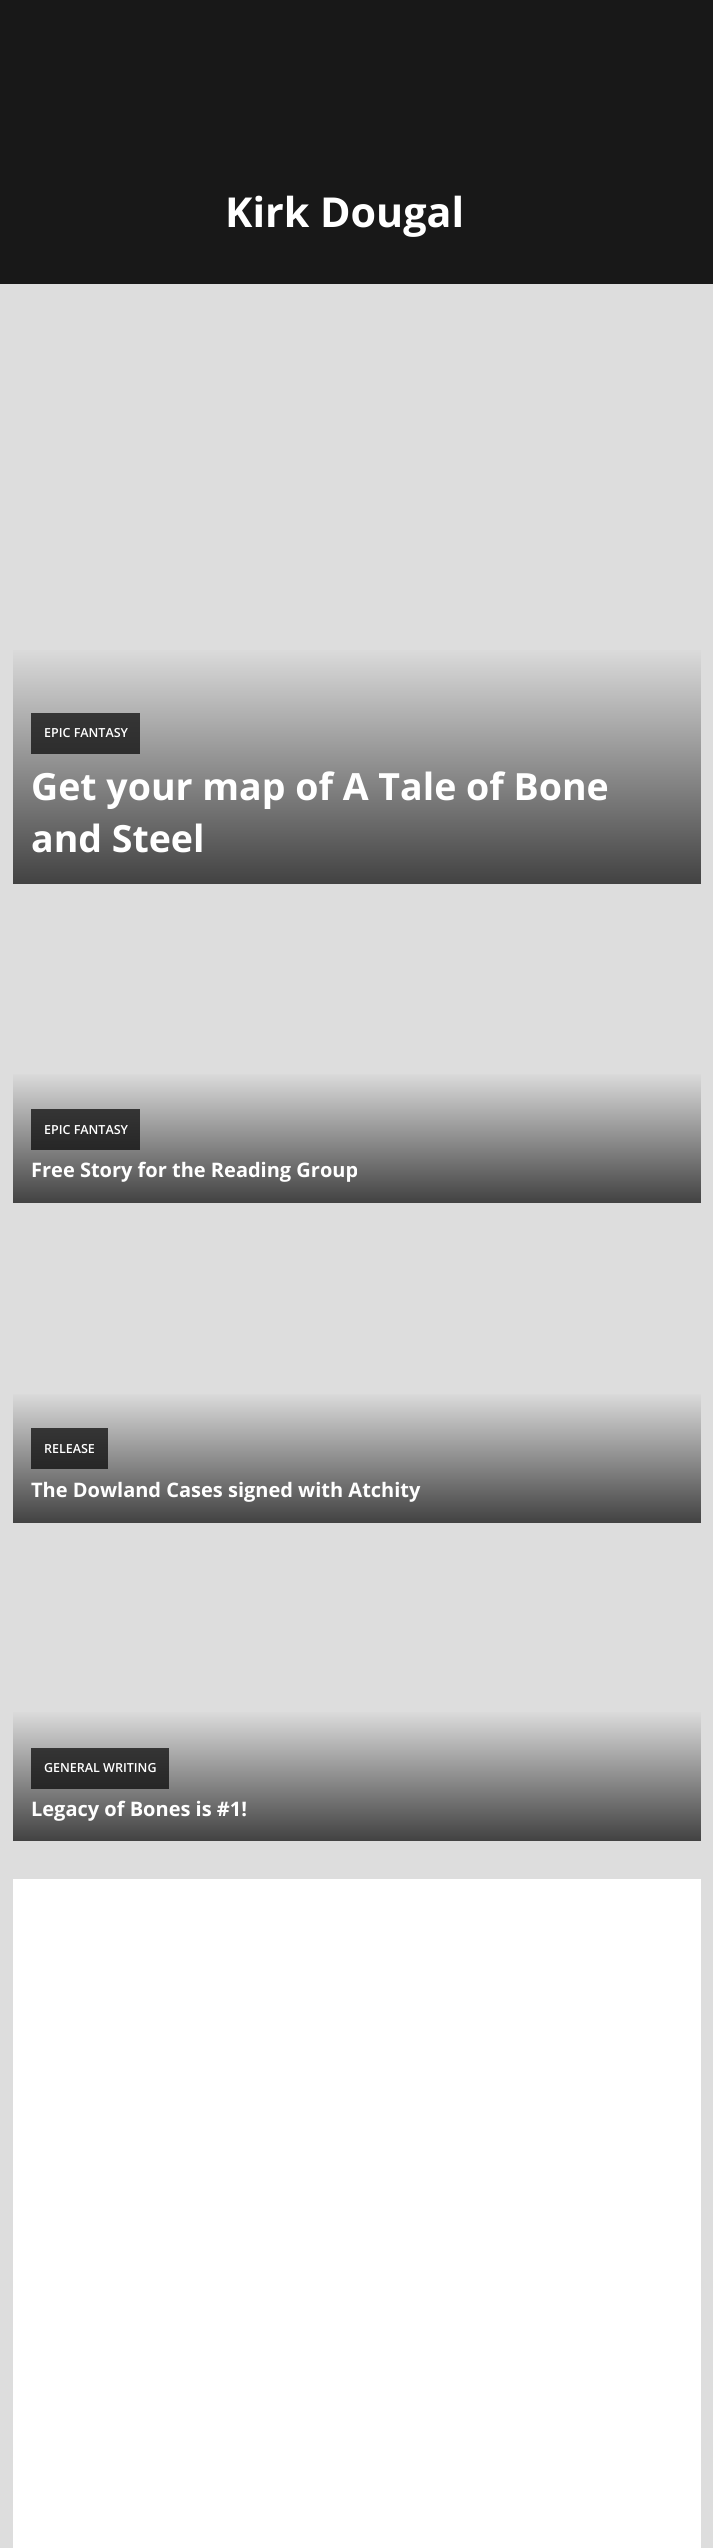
import math
import cairo

surface = cairo.ImageSurface(cairo.FORMAT_RGB24, 713, 2548)
ctx = cairo.Context(surface)
options = cairo.FontOptions()
options.set_hint_metrics(cairo.HINT_METRICS_OFF)
options.set_hint_style(cairo.HINT_STYLE_NONE)
ctx.set_font_options(options)
ctx.set_miter_limit(4)


def set_color(code):
    ctx.set_source_rgb(*(v / 255 for v in bytes.fromhex(code[-6:])))


def draw_text(x, y, s, family, size, color, bold=False, italic=False):
    ctx.select_font_face(family, cairo.FONT_SLANT_ITALIC if italic else cairo.FONT_SLANT_NORMAL, cairo.FONT_WEIGHT_BOLD if bold else cairo.FONT_WEIGHT_NORMAL)
    ctx.set_font_size(size)
    set_color(color)
    ctx.move_to(x, y)
    ctx.show_text(s)


def fill_rect(x, y, w, h, color):
    set_color(color)
    ctx.rectangle(x, y, w, h)
    ctx.fill()


set_color("#dddddd")
ctx.paint()
fill_rect(0, 0, 713, 284, "#181818")
draw_text(225, 227, "Kirk Dougal", "Open Sans", 41.25, "#ffffff", bold=True)
gradient = cairo.LinearGradient(357, 490, 357, 884)
gradient.add_color_stop_rgba(0.4, 0.863, 0.863, 0.863, 1)
gradient.add_color_stop_rgba(1, 0.259, 0.259, 0.259, 1)
ctx.set_source(gradient)
ctx.rectangle(13, 650, 688, 234)
ctx.fill()
gradient = cairo.LinearGradient(357, 490, 357, 884)
gradient.add_color_stop_rgba(0.4, 0.259, 0.259, 0.259, 1)
gradient.add_color_stop_rgba(1, 0.078, 0.078, 0.078, 1)
ctx.set_source(gradient)
ctx.rectangle(31, 713, 109, 41)
ctx.fill()
draw_text(44, 737, "EPIC FANTASY", "Open Sans SemiBold", 12.5, "#ffffff")
draw_text(31, 800, "Get your map of A Tale of Bone", "Open Sans", 37.5, "#ffffff", bold=True)
draw_text(31, 852, "and Steel", "Open Sans", 37.5, "#ffffff", bold=True)
gradient = cairo.LinearGradient(357, 984, 357, 1203)
gradient.add_color_stop_rgba(0.4, 0.867, 0.867, 0.867, 1)
gradient.add_color_stop_rgba(1, 0.259, 0.259, 0.259, 1)
ctx.set_source(gradient)
ctx.rectangle(13, 1074, 688, 129)
ctx.fill()
gradient = cairo.LinearGradient(357, 984, 357, 1203)
gradient.add_color_stop_rgba(0.4, 0.259, 0.259, 0.259, 1)
gradient.add_color_stop_rgba(1, 0.078, 0.078, 0.078, 1)
ctx.set_source(gradient)
ctx.rectangle(31, 1109, 109, 41)
ctx.fill()
draw_text(44, 1134, "EPIC FANTASY", "Open Sans SemiBold", 12.5, "#ffffff")
draw_text(31, 1177, "Free Story for the Reading Group", "Open Sans", 20, "#ffffff", bold=True)
gradient = cairo.LinearGradient(357, 1304, 357, 1523)
gradient.add_color_stop_rgba(0.4, 0.867, 0.867, 0.867, 1)
gradient.add_color_stop_rgba(1, 0.259, 0.259, 0.259, 1)
ctx.set_source(gradient)
ctx.rectangle(13, 1394, 688, 129)
ctx.fill()
gradient = cairo.LinearGradient(357, 1304, 357, 1523)
gradient.add_color_stop_rgba(0.4, 0.259, 0.259, 0.259, 1)
gradient.add_color_stop_rgba(1, 0.078, 0.078, 0.078, 1)
ctx.set_source(gradient)
ctx.rectangle(31, 1428, 77, 41)
ctx.fill()
draw_text(44, 1453, "RELEASE", "Open Sans SemiBold", 12.5, "#ffffff")
draw_text(31, 1497, "The Dowland Cases signed with Atchity", "Open Sans", 20, "#ffffff", bold=True)
gradient = cairo.LinearGradient(357, 1623, 357, 1841)
gradient.add_color_stop_rgba(0.4, 0.867, 0.867, 0.867, 1)
gradient.add_color_stop_rgba(1, 0.259, 0.259, 0.259, 1)
ctx.set_source(gradient)
ctx.rectangle(13, 1712, 688, 129)
ctx.fill()
gradient = cairo.LinearGradient(357, 1623, 357, 1841)
gradient.add_color_stop_rgba(0.4, 0.259, 0.259, 0.259, 1)
gradient.add_color_stop_rgba(1, 0.078, 0.078, 0.078, 1)
ctx.set_source(gradient)
ctx.rectangle(31, 1748, 138, 41)
ctx.fill()
draw_text(44, 1772, "GENERAL WRITING", "Open Sans SemiBold", 12.5, "#ffffff")
draw_text(31, 1816, "Legacy of Bones is #1!", "Open Sans", 20, "#ffffff", bold=True)
fill_rect(13, 1879, 688, 669, "#ffffff")
surface.write_to_png("output.png")
